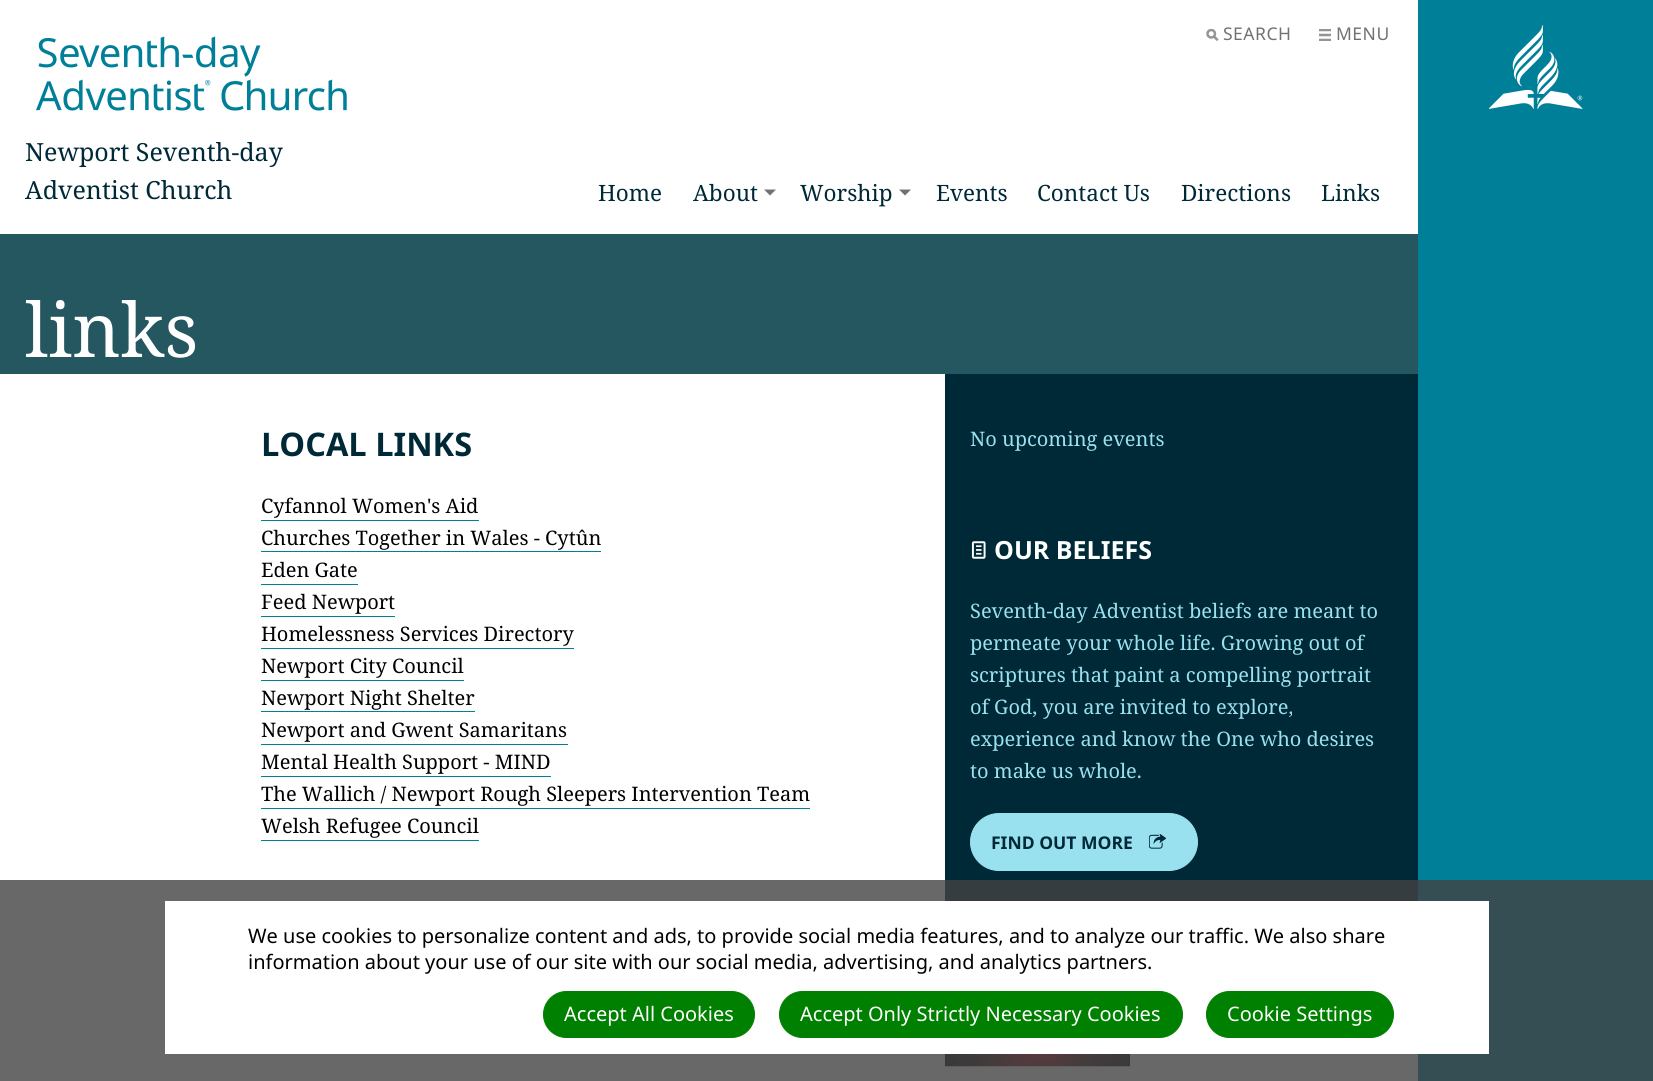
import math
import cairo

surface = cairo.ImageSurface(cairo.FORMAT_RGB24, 1653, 1081)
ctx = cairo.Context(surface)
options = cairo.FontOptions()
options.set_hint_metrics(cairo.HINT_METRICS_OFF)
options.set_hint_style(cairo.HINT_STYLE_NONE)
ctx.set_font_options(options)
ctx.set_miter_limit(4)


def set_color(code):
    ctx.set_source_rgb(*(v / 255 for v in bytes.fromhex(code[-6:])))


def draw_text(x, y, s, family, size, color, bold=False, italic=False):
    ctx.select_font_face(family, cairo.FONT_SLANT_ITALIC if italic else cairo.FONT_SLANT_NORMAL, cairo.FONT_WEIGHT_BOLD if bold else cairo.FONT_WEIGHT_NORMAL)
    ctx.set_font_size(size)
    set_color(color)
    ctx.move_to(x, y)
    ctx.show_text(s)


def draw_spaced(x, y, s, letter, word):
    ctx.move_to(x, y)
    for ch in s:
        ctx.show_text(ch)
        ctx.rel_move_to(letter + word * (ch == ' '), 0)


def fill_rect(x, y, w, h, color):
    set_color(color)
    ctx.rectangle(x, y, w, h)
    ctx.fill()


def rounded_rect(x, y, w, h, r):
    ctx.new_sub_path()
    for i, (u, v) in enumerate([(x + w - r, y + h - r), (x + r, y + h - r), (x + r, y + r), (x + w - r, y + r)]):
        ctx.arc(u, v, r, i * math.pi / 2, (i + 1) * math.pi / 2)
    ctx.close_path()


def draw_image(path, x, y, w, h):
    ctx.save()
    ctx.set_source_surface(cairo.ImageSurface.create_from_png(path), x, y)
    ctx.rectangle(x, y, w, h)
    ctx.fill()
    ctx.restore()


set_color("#ffffff")
ctx.paint()
draw_image("assets/img1.png", 1206, 29, 13, 12)
ctx.select_font_face("Noto Sans")
ctx.set_font_size(17.5)
set_color("#717171")
draw_spaced(1223, 40, "SEARCH", 0.5, 0)
draw_image("assets/img2.png", 1319, 29, 12, 12)
draw_spaced(1336, 40, "MENU", 0.5, 0)
draw_image("assets/img3.png", 36, 36, 311, 75)
draw_text(25, 161, "Newport Seventh-day", "Noto Serif", 25, "#002938")
draw_text(25, 199, "Adventist Church", "Noto Serif", 25, "#002938")
draw_text(598, 201, "Home", "Noto Serif", 22.5, "#002938")
draw_text(693, 201, "About", "Noto Serif", 22.5, "#002938")
set_color("#717171")
ctx.new_path()
ctx.move_to(764, 189.5)
ctx.line_to(776, 189.5)
ctx.line_to(770, 195.5)
ctx.close_path()
ctx.fill()
draw_text(800, 201, "Worship", "Noto Serif", 22.5, "#002938")
set_color("#717171")
ctx.new_path()
ctx.move_to(899, 189.5)
ctx.line_to(911, 189.5)
ctx.line_to(905, 195.5)
ctx.close_path()
ctx.fill()
draw_text(936, 201, "Events", "Noto Serif", 22.5, "#002938")
draw_text(1037, 201, "Contact Us", "Noto Serif", 22.5, "#002938")
draw_text(1181, 201, "Directions", "Noto Serif", 22.5, "#002938")
draw_text(1321, 201, "Links", "Noto Serif", 22.5, "#002938")
fill_rect(0, 234, 1418, 140, "#255760")
draw_text(25, 357, "links", "Noto Serif", 75, "#ffffff")
draw_text(261, 456, "LOCAL LINKS", "Noto Sans", 32.5, "#002938", bold=True)
draw_text(261, 513, "Cyfannol Women's Aid", "Noto Serif", 20, "#000000")
fill_rect(261, 520, 218, 1, "#007f98")
draw_text(261, 545, "Churches Together in Wales - Cytûn", "Noto Serif", 20, "#000000")
fill_rect(261, 551, 340, 1, "#007f98")
draw_text(261, 577, "Eden Gate", "Noto Serif", 20, "#000000")
fill_rect(261, 584, 97, 1, "#007f98")
draw_text(261, 609, "Feed Newport", "Noto Serif", 20, "#000000")
fill_rect(261, 616, 134, 1, "#007f98")
draw_text(261, 641, "Homelessness Services Directory", "Noto Serif", 20, "#000000")
fill_rect(261, 648, 313, 1, "#007f98")
draw_text(261, 673, "Newport City Council", "Noto Serif", 20, "#000000")
fill_rect(261, 680, 203, 1, "#007f98")
draw_text(261, 705, "Newport Night Shelter", "Noto Serif", 20, "#000000")
fill_rect(261, 711, 214, 1, "#007f98")
draw_text(261, 737, "Newport and Gwent Samaritans", "Noto Serif", 20, "#000000")
fill_rect(261, 744, 307, 1, "#007f98")
draw_text(261, 769, "Mental Health Support - MIND", "Noto Serif", 20, "#000000")
fill_rect(261, 776, 290, 1, "#007f98")
draw_text(261, 801, "The Wallich / Newport Rough Sleepers Intervention Team", "Noto Serif", 20, "#000000")
fill_rect(261, 808, 549, 1, "#007f98")
draw_text(261, 833, "Welsh Refugee Council", "Noto Serif", 20, "#000000")
fill_rect(261, 840, 218, 1, "#007f98")
fill_rect(945, 374, 473, 527, "#002938")
draw_text(970, 446, "No upcoming events", "Noto Serif", 20, "#9ae1f0")
draw_image("assets/img4.png", 971, 541, 15, 18)
draw_text(994, 559, "OUR BELIEFS", "Noto Sans", 25, "#ffffff", bold=True)
draw_text(970, 618, "Seventh-day Adventist beliefs are meant to", "Noto Serif", 20, "#9ae1f0")
draw_text(970, 650, "permeate your whole life. Growing out of", "Noto Serif", 20, "#9ae1f0")
draw_text(970, 682, "scriptures that paint a compelling portrait", "Noto Serif", 20, "#9ae1f0")
draw_text(970, 714, "of God, you are invited to explore,", "Noto Serif", 20, "#9ae1f0")
draw_text(970, 746, "experience and know the One who desires", "Noto Serif", 20, "#9ae1f0")
draw_text(970, 778, "to make us whole.", "Noto Serif", 20, "#9ae1f0")
rounded_rect(970.5, 813.5, 227, 57, 28.5)
ctx.fill_preserve()
ctx.set_line_width(1)
ctx.stroke()
draw_text(991, 849, "FIND OUT MORE", "Noto Sans", 17.5, "#002938", bold=True)
draw_image("assets/img5.png", 1149, 834, 17, 15)
draw_image("assets/img6.png", 945, 1054, 185, 13)
fill_rect(1418, 0, 235, 1081, "#007f98")
draw_image("assets/img7.png", 1489, 25, 94, 84)
ctx.set_source_rgba(0.259, 0.259, 0.259, 0.8)
ctx.rectangle(0, 880, 1653, 201)
ctx.fill()
fill_rect(165, 901, 1324, 153, "#ffffff")
draw_text(248, 943, "We use cookies to personalize content and ads, to provide social media features, and to analyze our traffic. We also share", "Noto Sans", 20, "#000000")
draw_text(248, 969, "information about your use of our site with our social media, advertising, and analytics partners.", "Noto Sans", 20, "#000000")
set_color("#008000")
rounded_rect(543.5, 991.5, 211, 46, 23)
ctx.fill_preserve()
ctx.stroke()
draw_text(564, 1021, "Accept All Cookies", "Noto Sans", 20, "#ffffff")
set_color("#008000")
rounded_rect(779.5, 991.5, 403, 46, 23)
ctx.fill_preserve()
ctx.stroke()
draw_text(800, 1021, "Accept Only Strictly Necessary Cookies", "Noto Sans", 20, "#ffffff")
set_color("#008000")
rounded_rect(1206.5, 991.5, 187, 46, 23)
ctx.fill_preserve()
ctx.stroke()
draw_text(1227, 1021, "Cookie Settings", "Noto Sans", 20, "#ffffff")
surface.write_to_png("output.png")
